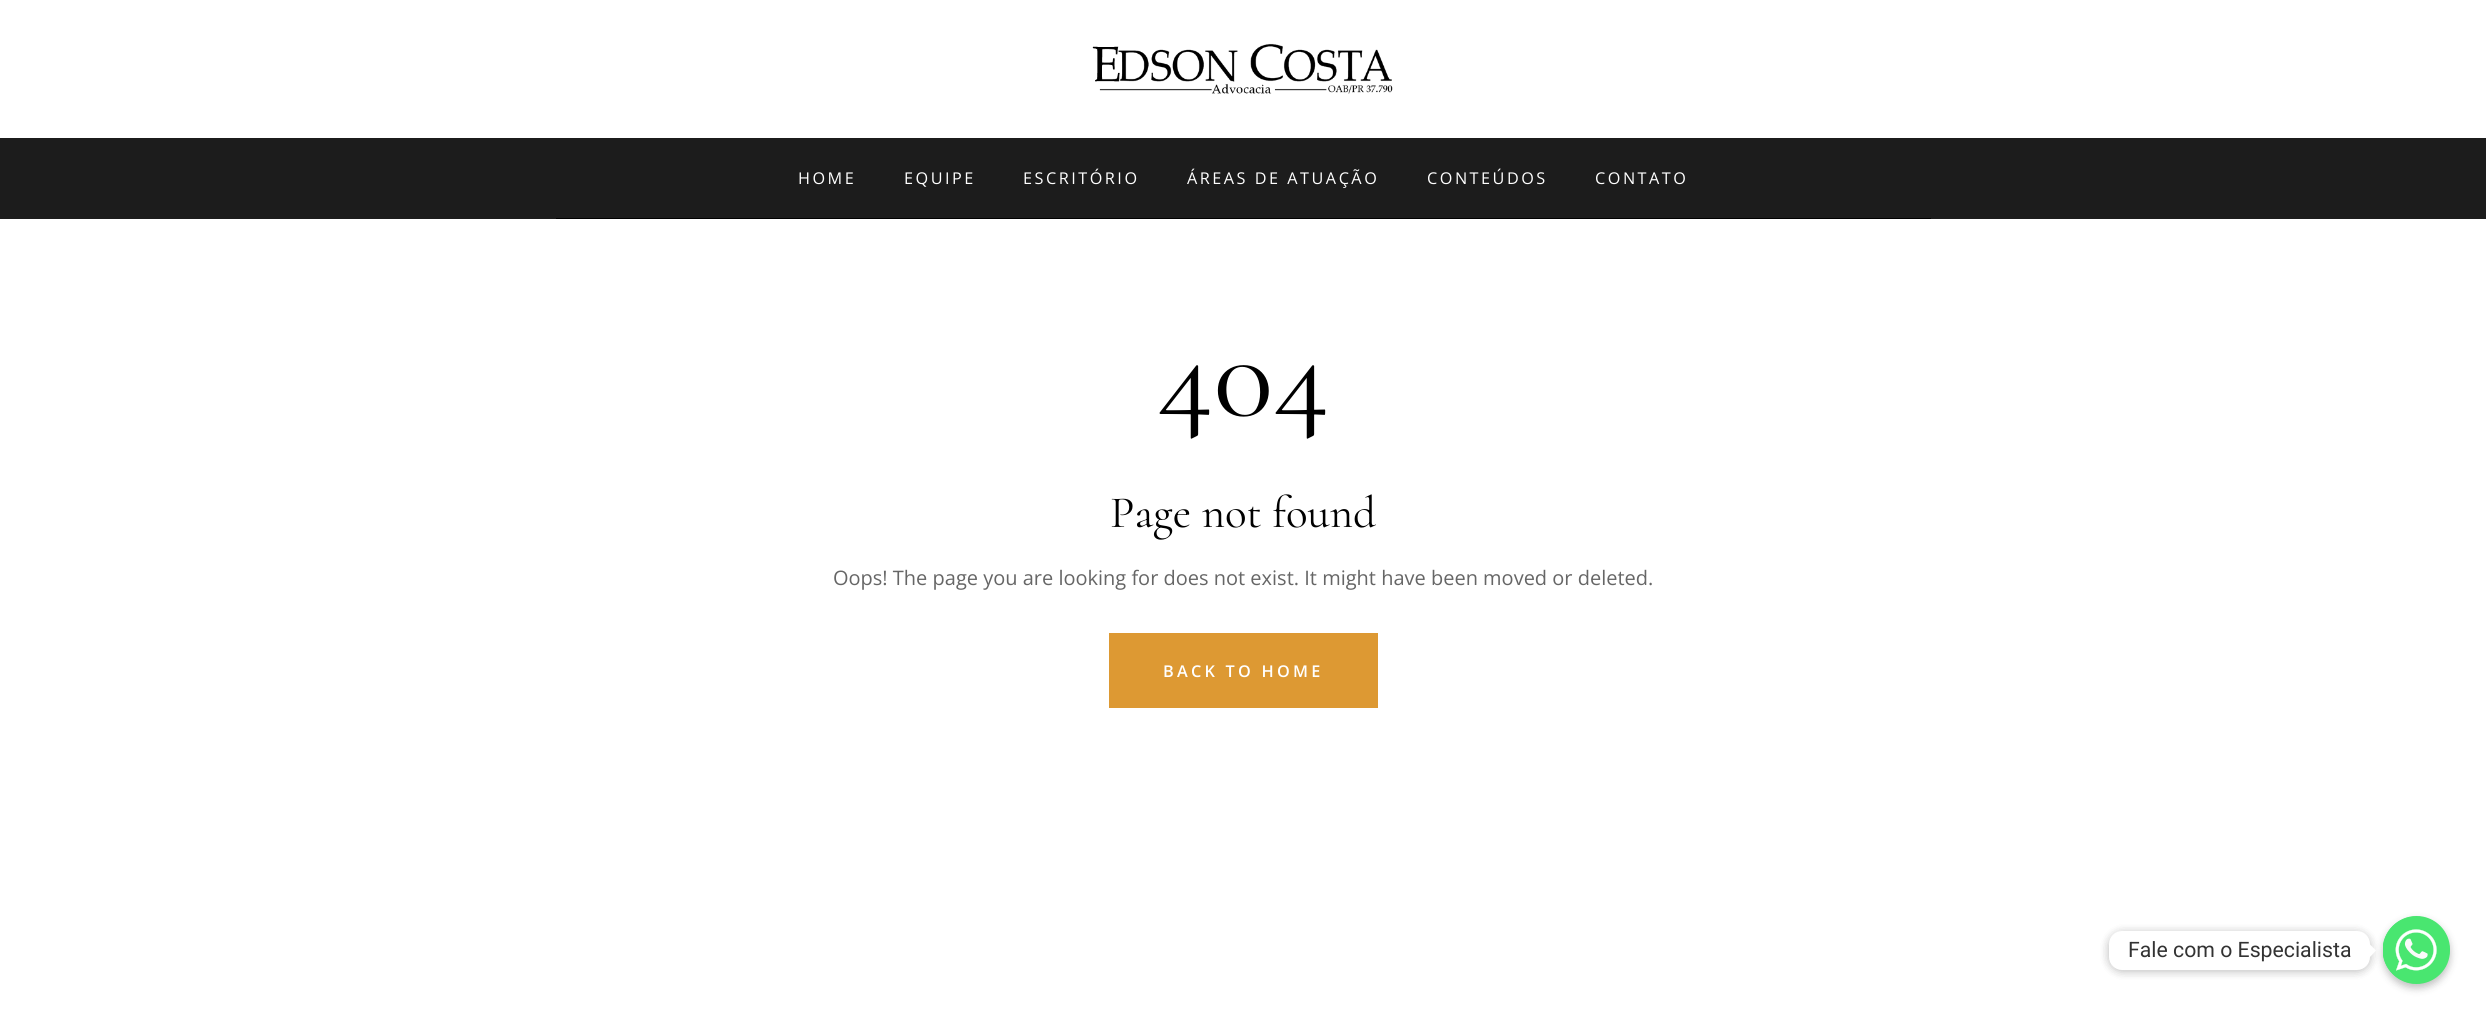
import math
import cairo

surface = cairo.ImageSurface(cairo.FORMAT_RGB24, 2486, 1014)
ctx = cairo.Context(surface)
options = cairo.FontOptions()
options.set_hint_metrics(cairo.HINT_METRICS_OFF)
options.set_hint_style(cairo.HINT_STYLE_NONE)
ctx.set_font_options(options)
ctx.set_miter_limit(4)


def set_color(code):
    ctx.set_source_rgb(*(v / 255 for v in bytes.fromhex(code[-6:])))


def draw_text(x, y, s, family, size, color, bold=False, italic=False):
    ctx.select_font_face(family, cairo.FONT_SLANT_ITALIC if italic else cairo.FONT_SLANT_NORMAL, cairo.FONT_WEIGHT_BOLD if bold else cairo.FONT_WEIGHT_NORMAL)
    ctx.set_font_size(size)
    set_color(color)
    ctx.move_to(x, y)
    ctx.show_text(s)


def draw_spaced(x, y, s, letter, word):
    ctx.move_to(x, y)
    for ch in s:
        ctx.show_text(ch)
        ctx.rel_move_to(letter + word * (ch == ' '), 0)


def fill_rect(x, y, w, h, color):
    set_color(color)
    ctx.rectangle(x, y, w, h)
    ctx.fill()


def rounded_rect(x, y, w, h, r):
    ctx.new_sub_path()
    for i, (u, v) in enumerate([(x + w - r, y + h - r), (x + r, y + h - r), (x + r, y + r), (x + w - r, y + r)]):
        ctx.arc(u, v, r, i * math.pi / 2, (i + 1) * math.pi / 2)
    ctx.close_path()


def draw_shadow(x, y, w, h, r, blur, alpha):
    ctx.push_group_with_content(cairo.CONTENT_ALPHA)
    ctx.set_operator(cairo.OPERATOR_SOURCE)
    for i in range(15, -16, -2):
        e = blur * i / 6
        if min(w, h) + 2 * e > 0:
            ctx.set_source_rgba(0, 0, 0, alpha * math.erfc((i - 1) / 8.5) / 2)
            rounded_rect(x - e, y - e, w + 2 * e, h + 2 * e, max(0, min(r + e + blur * .6, min(w, h) / 2 + e)))
            ctx.fill()
    ctx.mask(ctx.pop_group())


def draw_image(path, x, y, w, h):
    ctx.save()
    ctx.set_source_surface(cairo.ImageSurface.create_from_png(path), x, y)
    ctx.rectangle(x, y, w, h)
    ctx.fill()
    ctx.restore()


set_color("#ffffff")
ctx.paint()
draw_image("assets/img1.png", 1092, 43, 301, 51)
fill_rect(0, 138, 2486, 81, "#1c1c1c")
fill_rect(556, 218, 1375, 1, "#000000")
ctx.select_font_face("Open Sans")
ctx.set_font_size(16.25)
set_color("#ffffff")
draw_spaced(798, 184, "HOME", 2.5, 0)
draw_spaced(904, 184, "EQUIPE", 2.5, 0)
draw_spaced(1023, 184, "ESCRITÓRIO", 2.5, 0)
draw_spaced(1187, 184, "ÁREAS DE ATUAÇÃO", 2.5, 0)
draw_spaced(1427, 184, "CONTEÚDOS", 2.5, 0)
draw_spaced(1595, 184, "CONTATO", 2.5, 0)
draw_text(1157, 415, "404", "Cormorant Light", 125, "#000000")
draw_text(1110, 527, "Page not found", "Cormorant Light", 45, "#000000")
draw_text(833, 585, "Oops! The page you are looking for does not exist. It might have been moved or deleted.", "Open Sans", 20, "#666666")
fill_rect(1109, 633, 269, 75, "#dd9933")
ctx.select_font_face("Open Sans SemiBold")
ctx.set_font_size(16.25)
set_color("#ffffff")
draw_spaced(1163, 677, "BACK TO HOME", 3.25, 0)
set_color("#000000")
draw_shadow(2383, 920, 67, 68, 33.5, 4, 0.25)
set_color("#49e670")
rounded_rect(2383, 916, 67, 68, 33.5)
ctx.fill()
draw_image("assets/img2.png", 2383, 916, 67, 68)
set_color("#000000")
draw_shadow(2109, 933, 261, 38, 13, 5, 0.15)
draw_shadow(2109, 933, 261, 38, 13, 5, 0.15)
set_color("#ffffff")
rounded_rect(2109, 931, 261, 39, 13)
ctx.fill()
draw_text(2128, 957, "Fale com o Especialista", "Roboto", 21.25, "#333333")
set_color("#ffffff")
ctx.new_path()
ctx.move_to(2370, 957)
ctx.line_to(2370, 944.5)
ctx.line_to(2376, 950.5)
ctx.close_path()
ctx.fill()
surface.write_to_png("output.png")
